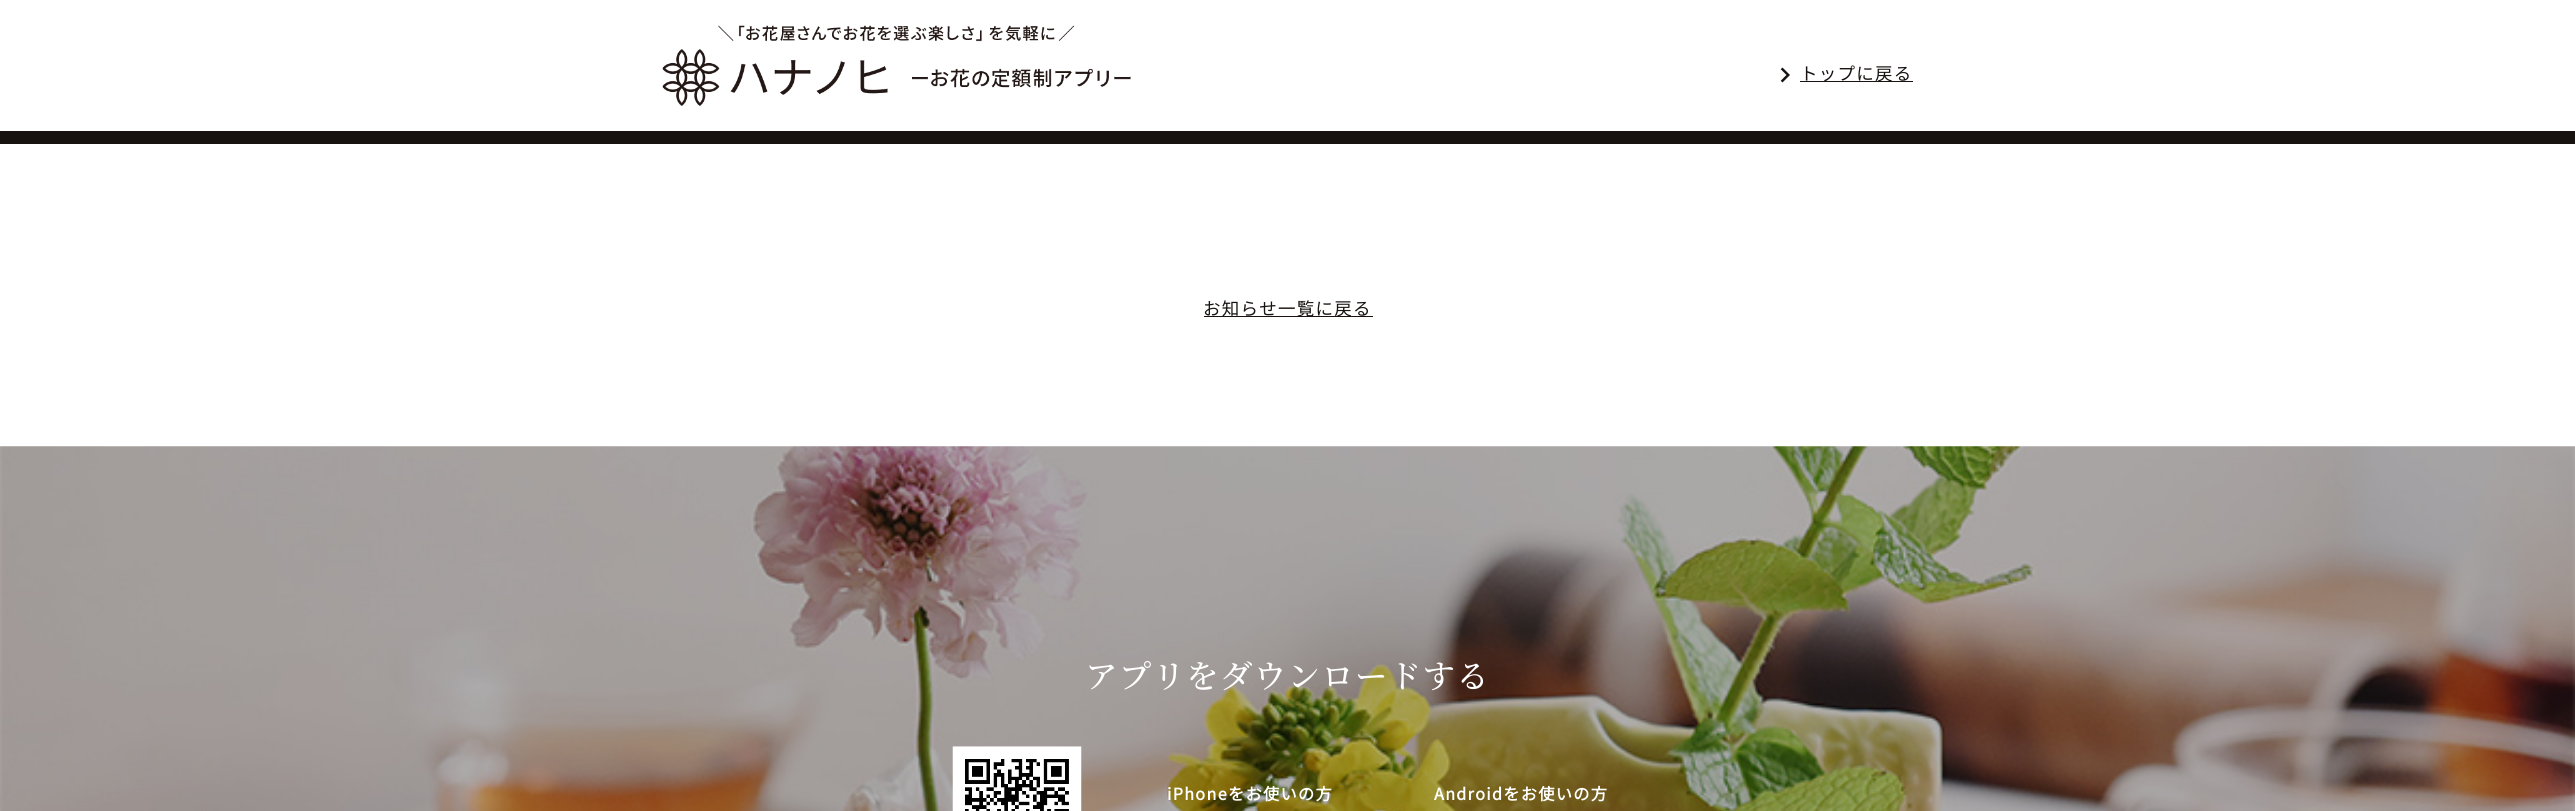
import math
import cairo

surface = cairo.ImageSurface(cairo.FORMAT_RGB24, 2575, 811)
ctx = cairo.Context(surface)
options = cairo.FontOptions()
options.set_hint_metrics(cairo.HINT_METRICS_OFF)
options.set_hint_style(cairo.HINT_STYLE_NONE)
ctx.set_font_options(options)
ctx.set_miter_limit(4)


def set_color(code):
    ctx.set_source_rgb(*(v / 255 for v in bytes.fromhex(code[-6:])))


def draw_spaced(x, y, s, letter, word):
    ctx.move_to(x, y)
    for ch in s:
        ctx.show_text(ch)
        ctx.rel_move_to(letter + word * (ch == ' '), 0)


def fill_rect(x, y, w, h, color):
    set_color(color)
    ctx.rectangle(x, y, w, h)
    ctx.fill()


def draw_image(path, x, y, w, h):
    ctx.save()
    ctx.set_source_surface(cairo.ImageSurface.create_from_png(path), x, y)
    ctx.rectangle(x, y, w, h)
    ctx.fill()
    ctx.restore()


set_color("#ffffff")
ctx.paint()
fill_rect(0, 131, 2575, 13, "#181311")
draw_image("assets/img1.png", 662, 25, 469, 81)
draw_image("assets/img2.png", 1780, 67, 10, 16)
fill_rect(1800, 81, 113, 1, "#181311")
ctx.select_font_face("Noto Sans JP Thin")
ctx.set_font_size(17.5)
draw_spaced(1800, 80, "トップに戻る", 1.25, 0)
fill_rect(1204, 316, 169, 1, "#181311")
draw_spaced(1203, 315, "お知らせ一覧に戻る", 1.25, 0)
draw_image("assets/img3.png", 0, 446, 2575, 365)
ctx.select_font_face("Noto Serif JP Medium")
ctx.set_font_size(32.5)
set_color("#ffffff")
draw_spaced(1085, 688, "アプリをダウンロードする", 1.25, 0)
draw_image("assets/img4.png", 952, 746, 130, 65)
ctx.select_font_face("Noto Sans JP", cairo.FONT_SLANT_NORMAL, cairo.FONT_WEIGHT_BOLD)
ctx.set_font_size(16.25)
draw_spaced(1167, 800, "iPhoneをお使いの方", 1.25, 0)
draw_spaced(1434, 800, "Androidをお使いの方", 1.25, 0)
surface.write_to_png("output.png")
